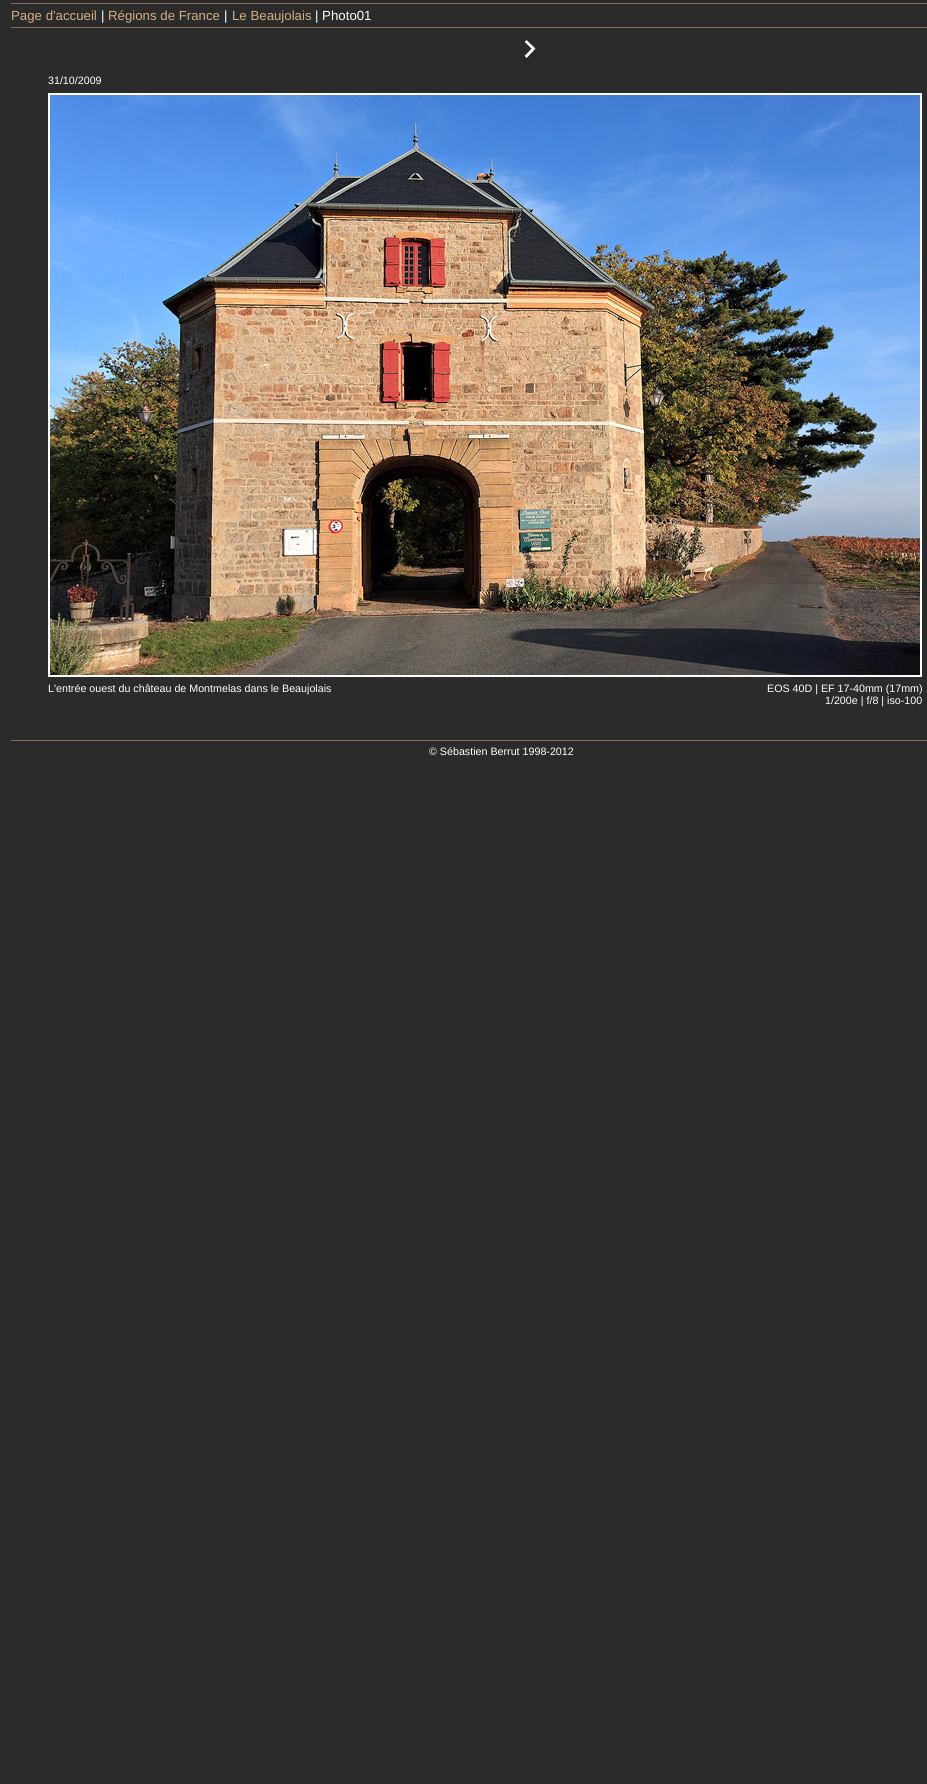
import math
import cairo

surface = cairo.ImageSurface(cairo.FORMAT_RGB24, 927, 1784)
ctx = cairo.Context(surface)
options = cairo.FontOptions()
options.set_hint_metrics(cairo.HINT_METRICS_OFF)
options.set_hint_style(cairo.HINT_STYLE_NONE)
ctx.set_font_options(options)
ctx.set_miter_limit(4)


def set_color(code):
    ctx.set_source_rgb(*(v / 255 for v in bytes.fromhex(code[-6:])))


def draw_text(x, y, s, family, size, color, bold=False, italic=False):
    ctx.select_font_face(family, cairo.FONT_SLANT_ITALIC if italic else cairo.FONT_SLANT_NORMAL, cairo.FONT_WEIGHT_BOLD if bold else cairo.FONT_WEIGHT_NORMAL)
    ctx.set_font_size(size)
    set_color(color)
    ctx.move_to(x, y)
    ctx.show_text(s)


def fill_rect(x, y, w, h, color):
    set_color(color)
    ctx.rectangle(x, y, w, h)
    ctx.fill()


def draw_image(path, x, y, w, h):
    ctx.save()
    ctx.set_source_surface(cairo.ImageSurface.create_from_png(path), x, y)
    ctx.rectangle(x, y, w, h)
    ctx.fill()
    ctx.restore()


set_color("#2b2b2b")
ctx.paint()
fill_rect(11, 3, 916, 1, "#8d6851")
draw_text(11, 20, "Page d'accueil", "Liberation Sans", 13.25, "#d5ae83")
draw_text(101, 20, "|", "Liberation Sans", 13.25, "#ffffff")
draw_text(108, 20, "Régions de France", "Liberation Sans", 13.25, "#d5ae83")
draw_text(224, 20, "|", "Liberation Sans", 13.25, "#ffffff")
draw_text(232, 20, "Le Beaujolais", "Liberation Sans", 13.25, "#d5ae83")
draw_text(315, 20, "| Photo01", "Liberation Sans", 13.25, "#ffffff")
fill_rect(11, 27, 916, 1, "#8d6851")
draw_image("assets/img1.png", 524, 35, 12, 23)
draw_text(48, 84, "31/10/2009", "Liberation Sans", 10.7, "#ffffff")
ctx.rectangle(49, 94, 872, 582)
ctx.stroke()
draw_image("assets/img2.png", 50, 95, 870, 580)
draw_text(48, 692, "L'entrée ouest du château de Montmelas dans le Beaujolais", "Liberation Sans", 10.7, "#ffffff")
draw_text(767, 692, "EOS 40D | EF 17-40mm (17mm)", "Liberation Sans", 10.7, "#ffffff")
draw_text(825, 704, "1/200e | f/8 | iso-100", "Liberation Sans", 10.7, "#ffffff")
fill_rect(11, 740, 916, 1, "#8d6851")
draw_text(429, 755, "© Sébastien Berrut 1998-2012", "Liberation Sans", 10.7, "#ffffff")
surface.write_to_png("output.png")
